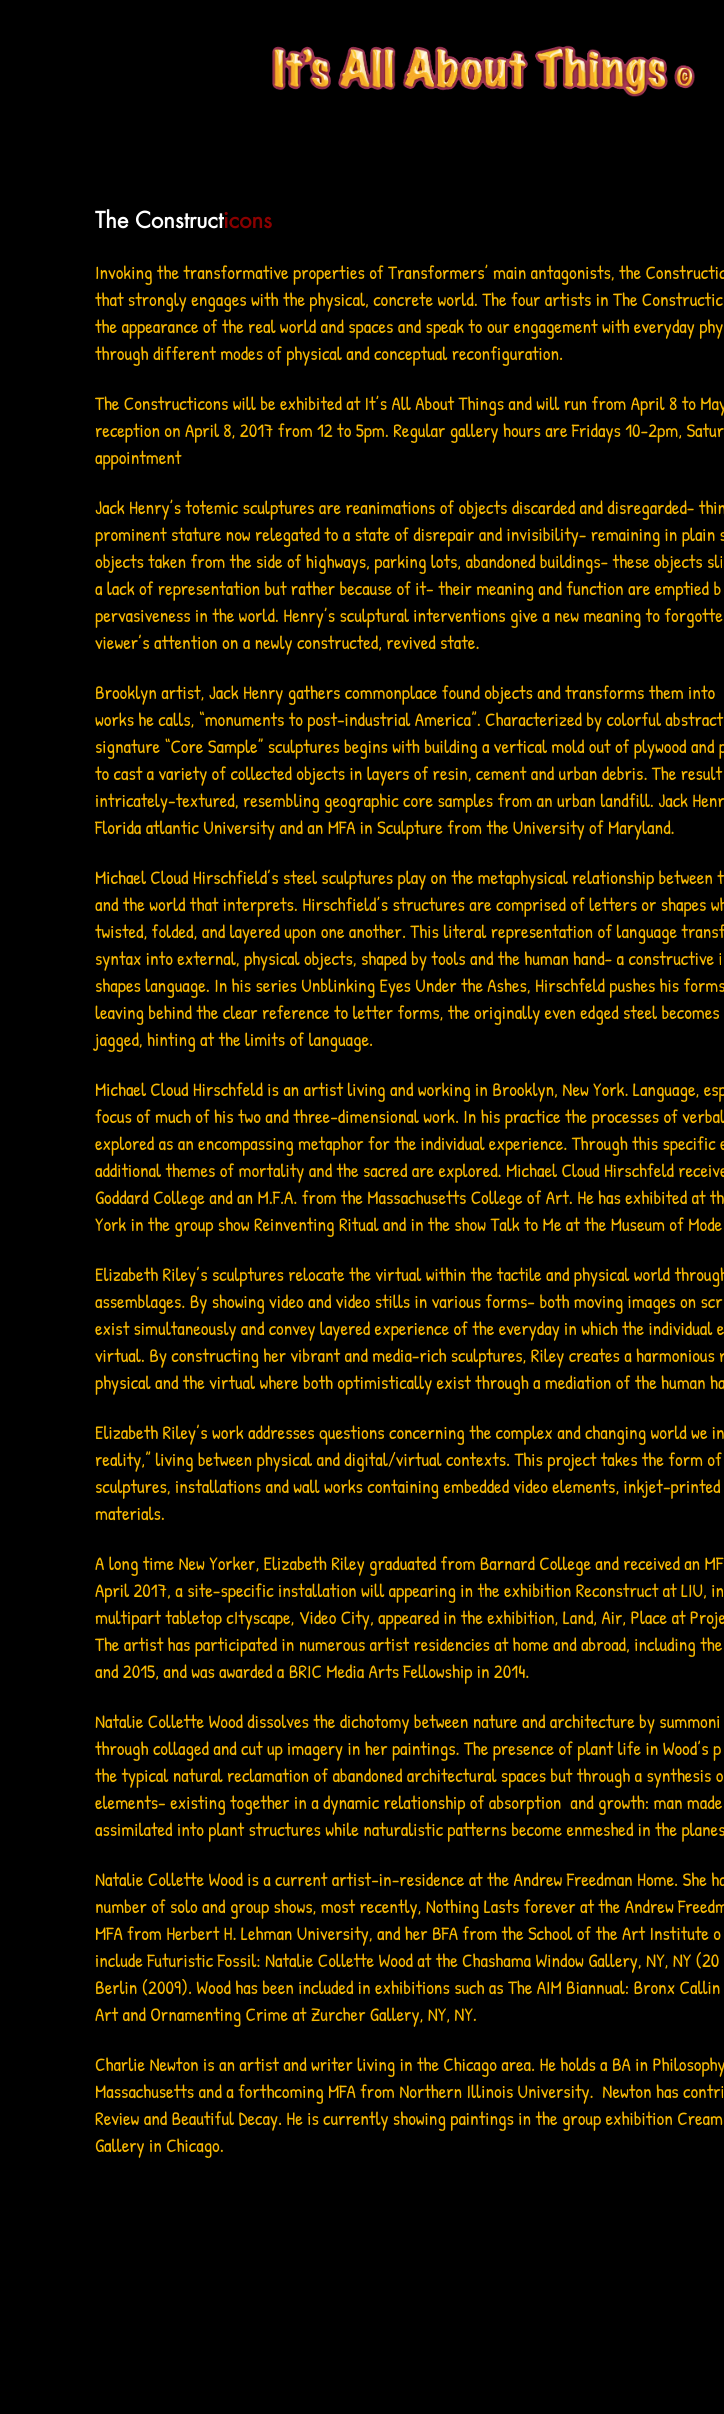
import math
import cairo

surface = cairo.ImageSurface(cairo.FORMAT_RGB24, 724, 2414)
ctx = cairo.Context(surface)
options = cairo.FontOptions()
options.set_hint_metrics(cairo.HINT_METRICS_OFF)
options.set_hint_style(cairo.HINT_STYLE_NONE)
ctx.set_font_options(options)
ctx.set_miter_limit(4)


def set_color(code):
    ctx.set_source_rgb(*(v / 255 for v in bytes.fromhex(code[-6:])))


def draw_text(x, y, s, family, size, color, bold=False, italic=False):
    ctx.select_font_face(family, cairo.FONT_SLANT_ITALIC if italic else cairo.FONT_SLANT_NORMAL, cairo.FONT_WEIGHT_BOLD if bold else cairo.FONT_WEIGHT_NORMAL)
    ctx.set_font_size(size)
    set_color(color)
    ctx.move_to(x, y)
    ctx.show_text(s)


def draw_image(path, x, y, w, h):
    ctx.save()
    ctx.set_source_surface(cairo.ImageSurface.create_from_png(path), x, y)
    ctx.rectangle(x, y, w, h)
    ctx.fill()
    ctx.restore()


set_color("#000000")
ctx.paint()
draw_image("assets/img1.png", 272, 45, 423, 52)
draw_text(95, 228, "The Construct", "futura", 22, "#ffffff", bold=True)
draw_text(223, 228, "icons", "futura", 22, "#8b0000", bold=True)
draw_text(95, 279, "Invoking the transformative properties of Transformers’ main antagonists, the Constructic", "Patrick Hand", 19, "#f7b800")
draw_text(95, 306, "that strongly engages with the physical, concrete world. The four artists in The Constructic", "Patrick Hand", 19, "#f7b800")
draw_text(95, 333, "the appearance of the real world and spaces and speak to our engagement with everyday phy", "Patrick Hand", 19, "#f7b800")
draw_text(95, 360, "through different modes of physical and conceptual reconfiguration.", "Patrick Hand", 19, "#f7b800")
draw_text(95, 410, "The Constructicons will be exhibited at It’s All About Things and will run from April 8 to May", "Patrick Hand", 19, "#f7b800")
draw_text(95, 437, "reception on April 8, 2017 from 12 to 5pm. Regular gallery hours are Fridays 10-2pm, Satur", "Patrick Hand", 19, "#f7b800")
draw_text(95, 464, "appointment", "Patrick Hand", 19, "#f7b800")
draw_text(95, 514, "Jack Henry’s totemic sculptures are reanimations of objects discarded and disregarded- thin", "Patrick Hand", 19, "#f7b800")
draw_text(95, 541, "prominent stature now relegated to a state of disrepair and invisibility- remaining in plain s", "Patrick Hand", 19, "#f7b800")
draw_text(95, 568, "objects taken from the side of highways, parking lots, abandoned buildings- these objects sli", "Patrick Hand", 19, "#f7b800")
draw_text(95, 595, "a lack of representation but rather because of it- their meaning and function are emptied b", "Patrick Hand", 19, "#f7b800")
draw_text(95, 622, "pervasiveness in the world. Henry’s sculptural interventions give a new meaning to forgotte", "Patrick Hand", 19, "#f7b800")
draw_text(95, 649, "viewer’s attention on a newly constructed, revived state.", "Patrick Hand", 19, "#f7b800")
draw_text(95, 699, "Brooklyn artist, Jack Henry gathers commonplace found objects and transforms them into", "Patrick Hand", 19, "#f7b800")
draw_text(95, 726, "works he calls, “monuments to post-industrial America”. Characterized by colorful abstract", "Patrick Hand", 19, "#f7b800")
draw_text(95, 753, "signature “Core Sample” sculptures begins with building a vertical mold out of plywood and p", "Patrick Hand", 19, "#f7b800")
draw_text(95, 780, "to cast a variety of collected objects in layers of resin, cement and urban debris. The result", "Patrick Hand", 19, "#f7b800")
draw_text(95, 807, "intricately-textured, resembling geographic core samples from an urban landfill. Jack Henr", "Patrick Hand", 19, "#f7b800")
draw_text(95, 834, "Florida atlantic University and an MFA in Sculpture from the University of Maryland.", "Patrick Hand", 19, "#f7b800")
draw_text(95, 884, "Michael Cloud Hirschfield’s steel sculptures play on the metaphysical relationship between t", "Patrick Hand", 19, "#f7b800")
draw_text(95, 911, "and the world that interprets. Hirschfield’s structures are comprised of letters or shapes wh", "Patrick Hand", 19, "#f7b800")
draw_text(95, 938, "twisted, folded, and layered upon one another. This literal representation of language transf", "Patrick Hand", 19, "#f7b800")
draw_text(95, 965, "syntax into external, physical objects, shaped by tools and the human hand- a constructive i", "Patrick Hand", 19, "#f7b800")
draw_text(95, 992, "shapes language. In his series Unblinking Eyes Under the Ashes, Hirschfeld pushes his forms", "Patrick Hand", 19, "#f7b800")
draw_text(95, 1019, "leaving behind the clear reference to letter forms, the originally even edged steel becomes", "Patrick Hand", 19, "#f7b800")
draw_text(95, 1046, "jagged, hinting at the limits of language.", "Patrick Hand", 19, "#f7b800")
draw_text(95, 1096, "Michael Cloud Hirschfeld is an artist living and working in Brooklyn, New York. Language, esp", "Patrick Hand", 19, "#f7b800")
draw_text(95, 1123, "focus of much of his two and three-dimensional work. In his practice the processes of verbal", "Patrick Hand", 19, "#f7b800")
draw_text(95, 1150, "explored as an encompassing metaphor for the individual experience. Through this specific e", "Patrick Hand", 19, "#f7b800")
draw_text(95, 1177, "additional themes of mortality and the sacred are explored. Michael Cloud Hirschfeld receive", "Patrick Hand", 19, "#f7b800")
draw_text(95, 1204, "Goddard College and an M.F.A. from the Massachusetts College of Art. He has exhibited at th", "Patrick Hand", 19, "#f7b800")
draw_text(95, 1231, "York in the group show Reinventing Ritual and in the show Talk to Me at the Museum of Mode", "Patrick Hand", 19, "#f7b800")
draw_text(95, 1281, "Elizabeth Riley’s sculptures relocate the virtual within the tactile and physical world through", "Patrick Hand", 19, "#f7b800")
draw_text(95, 1308, "assemblages. By showing video and video stills in various forms- both moving images on scr", "Patrick Hand", 19, "#f7b800")
draw_text(95, 1335, "exist simultaneously and convey layered experience of the everyday in which the individual e", "Patrick Hand", 19, "#f7b800")
draw_text(95, 1362, "virtual. By constructing her vibrant and media-rich sculptures, Riley creates a harmonious r", "Patrick Hand", 19, "#f7b800")
draw_text(95, 1389, "physical and the virtual where both optimistically exist through a mediation of the human ha", "Patrick Hand", 19, "#f7b800")
draw_text(95, 1439, "Elizabeth Riley’s work addresses questions concerning the complex and changing world we in", "Patrick Hand", 19, "#f7b800")
draw_text(95, 1466, "reality,” living between physical and digital/virtual contexts. This project takes the form of", "Patrick Hand", 19, "#f7b800")
draw_text(95, 1493, "sculptures, installations and wall works containing embedded video elements, inkjet-printed", "Patrick Hand", 19, "#f7b800")
draw_text(95, 1520, "materials.", "Patrick Hand", 19, "#f7b800")
draw_text(95, 1570, "A long time New Yorker, Elizabeth Riley graduated from Barnard College and received an MF", "Patrick Hand", 19, "#f7b800")
draw_text(95, 1597, "April 2017, a site-specific installation will appearing in the exhibition Reconstruct at LIU, in", "Patrick Hand", 19, "#f7b800")
draw_text(95, 1624, "multipart tabletop cItyscape, Video City, appeared in the exhibition, Land, Air, Place at Proje", "Patrick Hand", 19, "#f7b800")
draw_text(95, 1651, "The artist has participated in numerous artist residencies at home and abroad, including the", "Patrick Hand", 19, "#f7b800")
draw_text(95, 1678, "and 2015, and was awarded a BRIC Media Arts Fellowship in 2014.", "Patrick Hand", 19, "#f7b800")
draw_text(95, 1728, "Natalie Collette Wood dissolves the dichotomy between nature and architecture by summoni", "Patrick Hand", 19, "#f7b800")
draw_text(95, 1755, "through collaged and cut up imagery in her paintings. The presence of plant life in Wood’s p", "Patrick Hand", 19, "#f7b800")
draw_text(95, 1782, "the typical natural reclamation of abandoned architectural spaces but through a synthesis o", "Patrick Hand", 19, "#f7b800")
draw_text(95, 1809, "elements- existing together in a dynamic relationship of absorption  and growth: man made", "Patrick Hand", 19, "#f7b800")
draw_text(95, 1836, "assimilated into plant structures while naturalistic patterns become enmeshed in the planes", "Patrick Hand", 19, "#f7b800")
draw_text(95, 1886, "Natalie Collette Wood is a current artist-in-residence at the Andrew Freedman Home. She ha", "Patrick Hand", 19, "#f7b800")
draw_text(95, 1913, "number of solo and group shows, most recently, Nothing Lasts forever at the Andrew Freedm", "Patrick Hand", 19, "#f7b800")
draw_text(95, 1940, "MFA from Herbert H. Lehman University, and her BFA from the School of the Art Institute o", "Patrick Hand", 19, "#f7b800")
draw_text(95, 1967, "include Futuristic Fossil: Natalie Collette Wood at the Chashama Window Gallery, NY, NY (20", "Patrick Hand", 19, "#f7b800")
draw_text(95, 1994, "Berlin (2009). Wood has been included in exhibitions such as The AIM Biannual: Bronx Callin", "Patrick Hand", 19, "#f7b800")
draw_text(95, 2021, "Art and Ornamenting Crime at Zurcher Gallery, NY, NY.", "Patrick Hand", 19, "#f7b800")
draw_text(95, 2071, "Charlie Newton is an artist and writer living in the Chicago area. He holds a BA in Philosophy", "Patrick Hand", 19, "#f7b800")
draw_text(95, 2098, "Massachusetts and a forthcoming MFA from Northern Illinois University.  Newton has contri", "Patrick Hand", 19, "#f7b800")
draw_text(95, 2125, "Review and Beautiful Decay. He is currently showing paintings in the group exhibition Cream", "Patrick Hand", 19, "#f7b800")
draw_text(95, 2152, "Gallery in Chicago.", "Patrick Hand", 19, "#f7b800")
surface.write_to_png("output.png")
